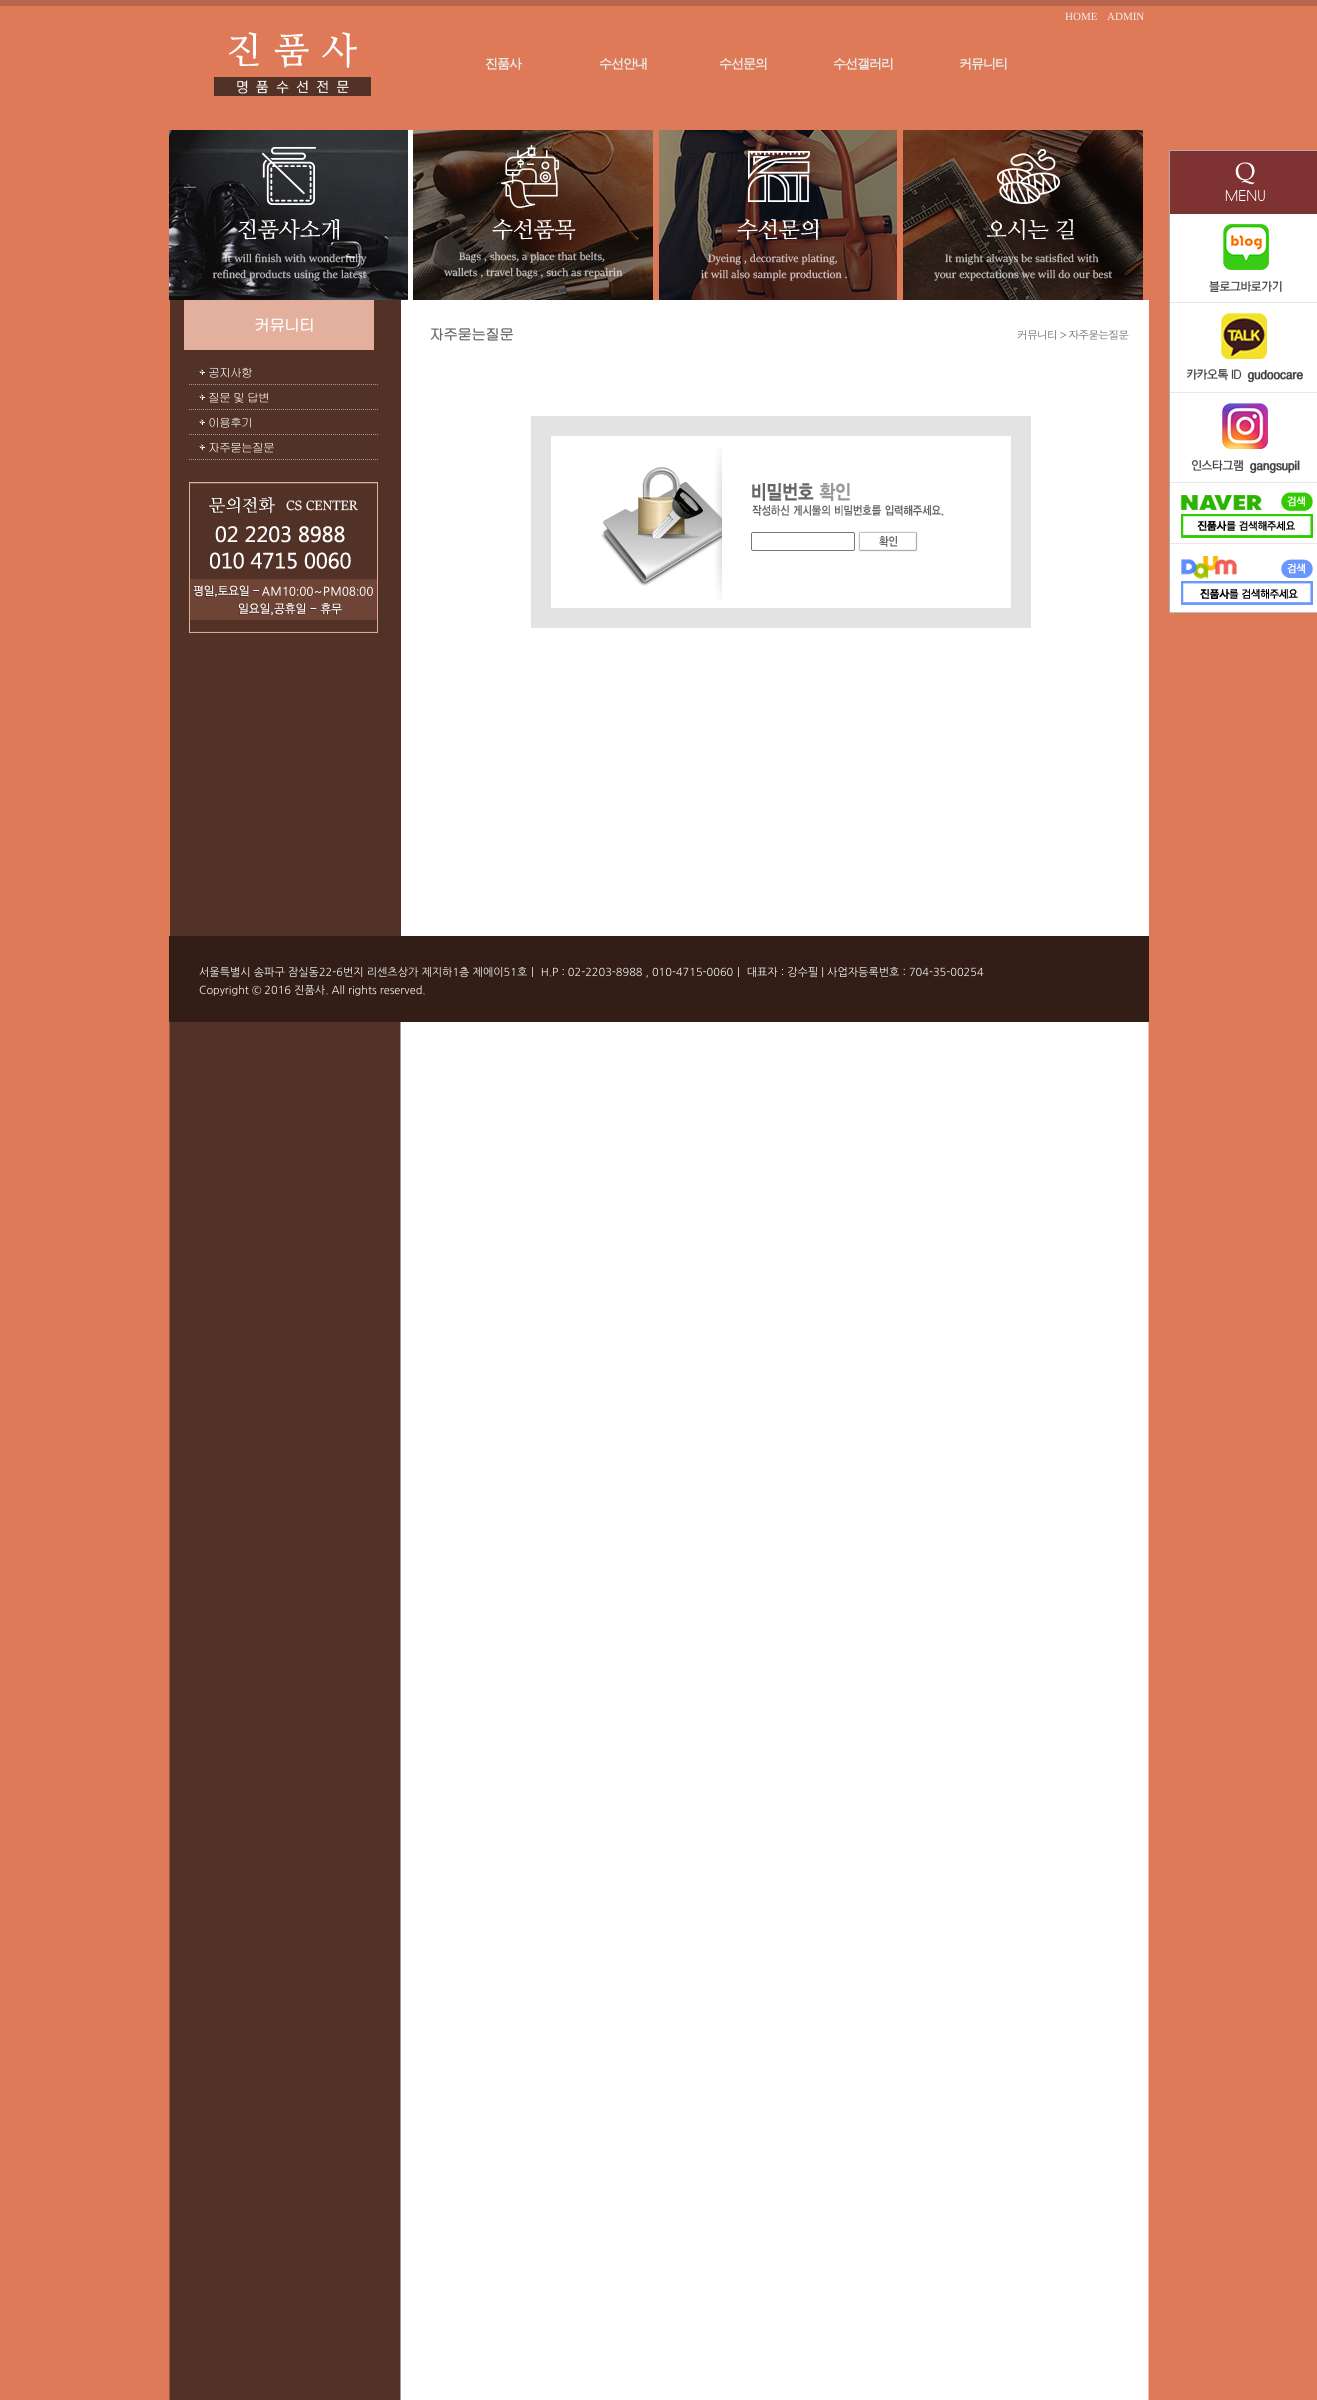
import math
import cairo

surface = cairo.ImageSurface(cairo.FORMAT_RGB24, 1317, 2400)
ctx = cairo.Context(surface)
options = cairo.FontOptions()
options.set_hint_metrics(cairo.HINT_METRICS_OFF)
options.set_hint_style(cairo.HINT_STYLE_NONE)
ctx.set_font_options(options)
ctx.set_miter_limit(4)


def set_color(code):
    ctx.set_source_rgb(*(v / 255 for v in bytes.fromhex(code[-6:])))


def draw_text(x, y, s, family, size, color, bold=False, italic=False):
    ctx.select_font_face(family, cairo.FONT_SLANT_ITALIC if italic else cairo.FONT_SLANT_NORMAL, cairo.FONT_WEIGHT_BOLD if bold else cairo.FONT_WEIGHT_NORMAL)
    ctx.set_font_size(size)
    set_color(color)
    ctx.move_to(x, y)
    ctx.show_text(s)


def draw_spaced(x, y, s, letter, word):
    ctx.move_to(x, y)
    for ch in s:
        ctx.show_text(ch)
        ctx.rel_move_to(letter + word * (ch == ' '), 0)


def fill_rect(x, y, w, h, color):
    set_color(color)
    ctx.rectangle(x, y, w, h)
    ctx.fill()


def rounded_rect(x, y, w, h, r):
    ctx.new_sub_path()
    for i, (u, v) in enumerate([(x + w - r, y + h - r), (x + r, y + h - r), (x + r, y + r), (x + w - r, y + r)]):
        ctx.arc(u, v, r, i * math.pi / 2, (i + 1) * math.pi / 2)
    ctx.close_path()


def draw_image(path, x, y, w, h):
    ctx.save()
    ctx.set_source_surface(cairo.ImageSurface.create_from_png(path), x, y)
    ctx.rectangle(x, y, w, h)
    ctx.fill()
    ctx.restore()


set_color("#ffffff")
ctx.paint()
draw_image("assets/img1.png", 0, 0, 1317, 2400)
draw_image("assets/img2.png", 169, 300, 980, 636)
draw_text(1065, 20, "HOME", "Liberation Serif", 11, "#f2f2f2")
draw_text(1107, 20, "ADMIN", "Liberation Serif", 11, "#f2f2f2")
draw_image("assets/img3.png", 214, 32, 157, 64)
ctx.select_font_face("WenQuanYi Zen Hei", cairo.FONT_SLANT_NORMAL, cairo.FONT_WEIGHT_BOLD)
ctx.set_font_size(13)
set_color("#ebebeb")
draw_spaced(485, 68, "진품사", -1, 0)
draw_spaced(599, 68, "수선안내", -1, 0)
draw_spaced(719, 68, "수선문의", -1, 0)
draw_spaced(833, 68, "수선갤러리", -1, 0)
draw_spaced(959, 68, "커뮤니티", -1, 0)
draw_image("assets/img4.png", 169, 130, 244, 170)
draw_image("assets/img5.png", 413, 130, 246, 170)
draw_image("assets/img6.png", 659, 130, 244, 170)
draw_image("assets/img7.png", 903, 130, 246, 170)
fill_rect(184, 300, 190, 50, "#e3b09d")
ctx.select_font_face("Gulim", cairo.FONT_SLANT_NORMAL, cairo.FONT_WEIGHT_BOLD)
ctx.set_font_size(16)
set_color("#ffffff")
draw_spaced(254, 331, "커뮤니티", -1, 0)
ctx.new_path()
ctx.move_to(189, 384.5)
ctx.line_to(379, 384.5)
set_color("#999999")
ctx.set_line_width(1)
ctx.set_dash([1, 1])
ctx.stroke()
draw_image("assets/img8.png", 199, 369, 6, 6)
ctx.select_font_face("Gulim")
ctx.set_font_size(12)
set_color("#ffffff")
draw_spaced(208, 377, "공지사항", -1, 0)
ctx.new_path()
ctx.move_to(189, 409.5)
ctx.line_to(379, 409.5)
set_color("#999999")
ctx.stroke()
draw_image("assets/img8.png", 199, 394, 6, 6)
set_color("#ffffff")
draw_spaced(208, 402, "질문 및 답변", -1, 0)
ctx.new_path()
ctx.move_to(189, 434.5)
ctx.line_to(379, 434.5)
set_color("#999999")
ctx.stroke()
draw_image("assets/img8.png", 199, 419, 6, 6)
set_color("#ffffff")
draw_spaced(208, 427, "이용후기", -1, 0)
ctx.new_path()
ctx.move_to(189, 459.5)
ctx.line_to(379, 459.5)
set_color("#999999")
ctx.stroke()
draw_image("assets/img8.png", 199, 444, 6, 6)
set_color("#ffffff")
draw_spaced(208, 452, "자주묻는질문", -1, 0)
draw_image("assets/img9.png", 189, 482, 189, 151)
ctx.select_font_face("Gulim", cairo.FONT_SLANT_NORMAL, cairo.FONT_WEIGHT_BOLD)
ctx.set_font_size(15)
set_color("#666666")
draw_spaced(429, 340, "자주묻는질문", -1, 0)
ctx.select_font_face("Dotum")
ctx.set_font_size(11)
draw_spaced(1017, 339, "커뮤니티 > 자주묻는질문", -1, 0)
fill_rect(531, 416, 500, 212, "#e3e3e3")
fill_rect(551, 436, 460, 172, "#ffffff")
draw_image("assets/img10.png", 601, 446, 121, 156)
draw_image("assets/img11.png", 752, 483, 192, 33)
rounded_rect(751.5, 532.5, 103, 18, 1.5)
set_color("#767676")
ctx.set_dash([])
ctx.stroke()
draw_image("assets/img12.png", 858, 531, 60, 21)
fill_rect(169, 936, 980, 86, "#331e17")
draw_image("assets/img13.png", 1169, 150, 148, 64)
draw_image("assets/img14.png", 1169, 214, 148, 90)
draw_image("assets/img15.png", 1169, 304, 148, 90)
draw_image("assets/img16.png", 1169, 394, 148, 90)
draw_image("assets/img17.png", 1169, 484, 148, 61)
draw_image("assets/img18.png", 1169, 545, 148, 68)
draw_text(199, 976, "서울특별시 송파구 잠실동22-6번지 리센츠상가 제지하1층 제에이51호ㅣ H.P : 02-2203-8988 , 010-4715-0060ㅣ 대표자 : 강수필 | 사업자등록번호 : 704-35-00254", "NanumGothic", 11, "#f2f2f2")
draw_text(199, 994, "Copyright © 2016 진품사. All rights reserved.", "NanumGothic", 11, "#f2f2f2")
surface.write_to_png("output.png")
